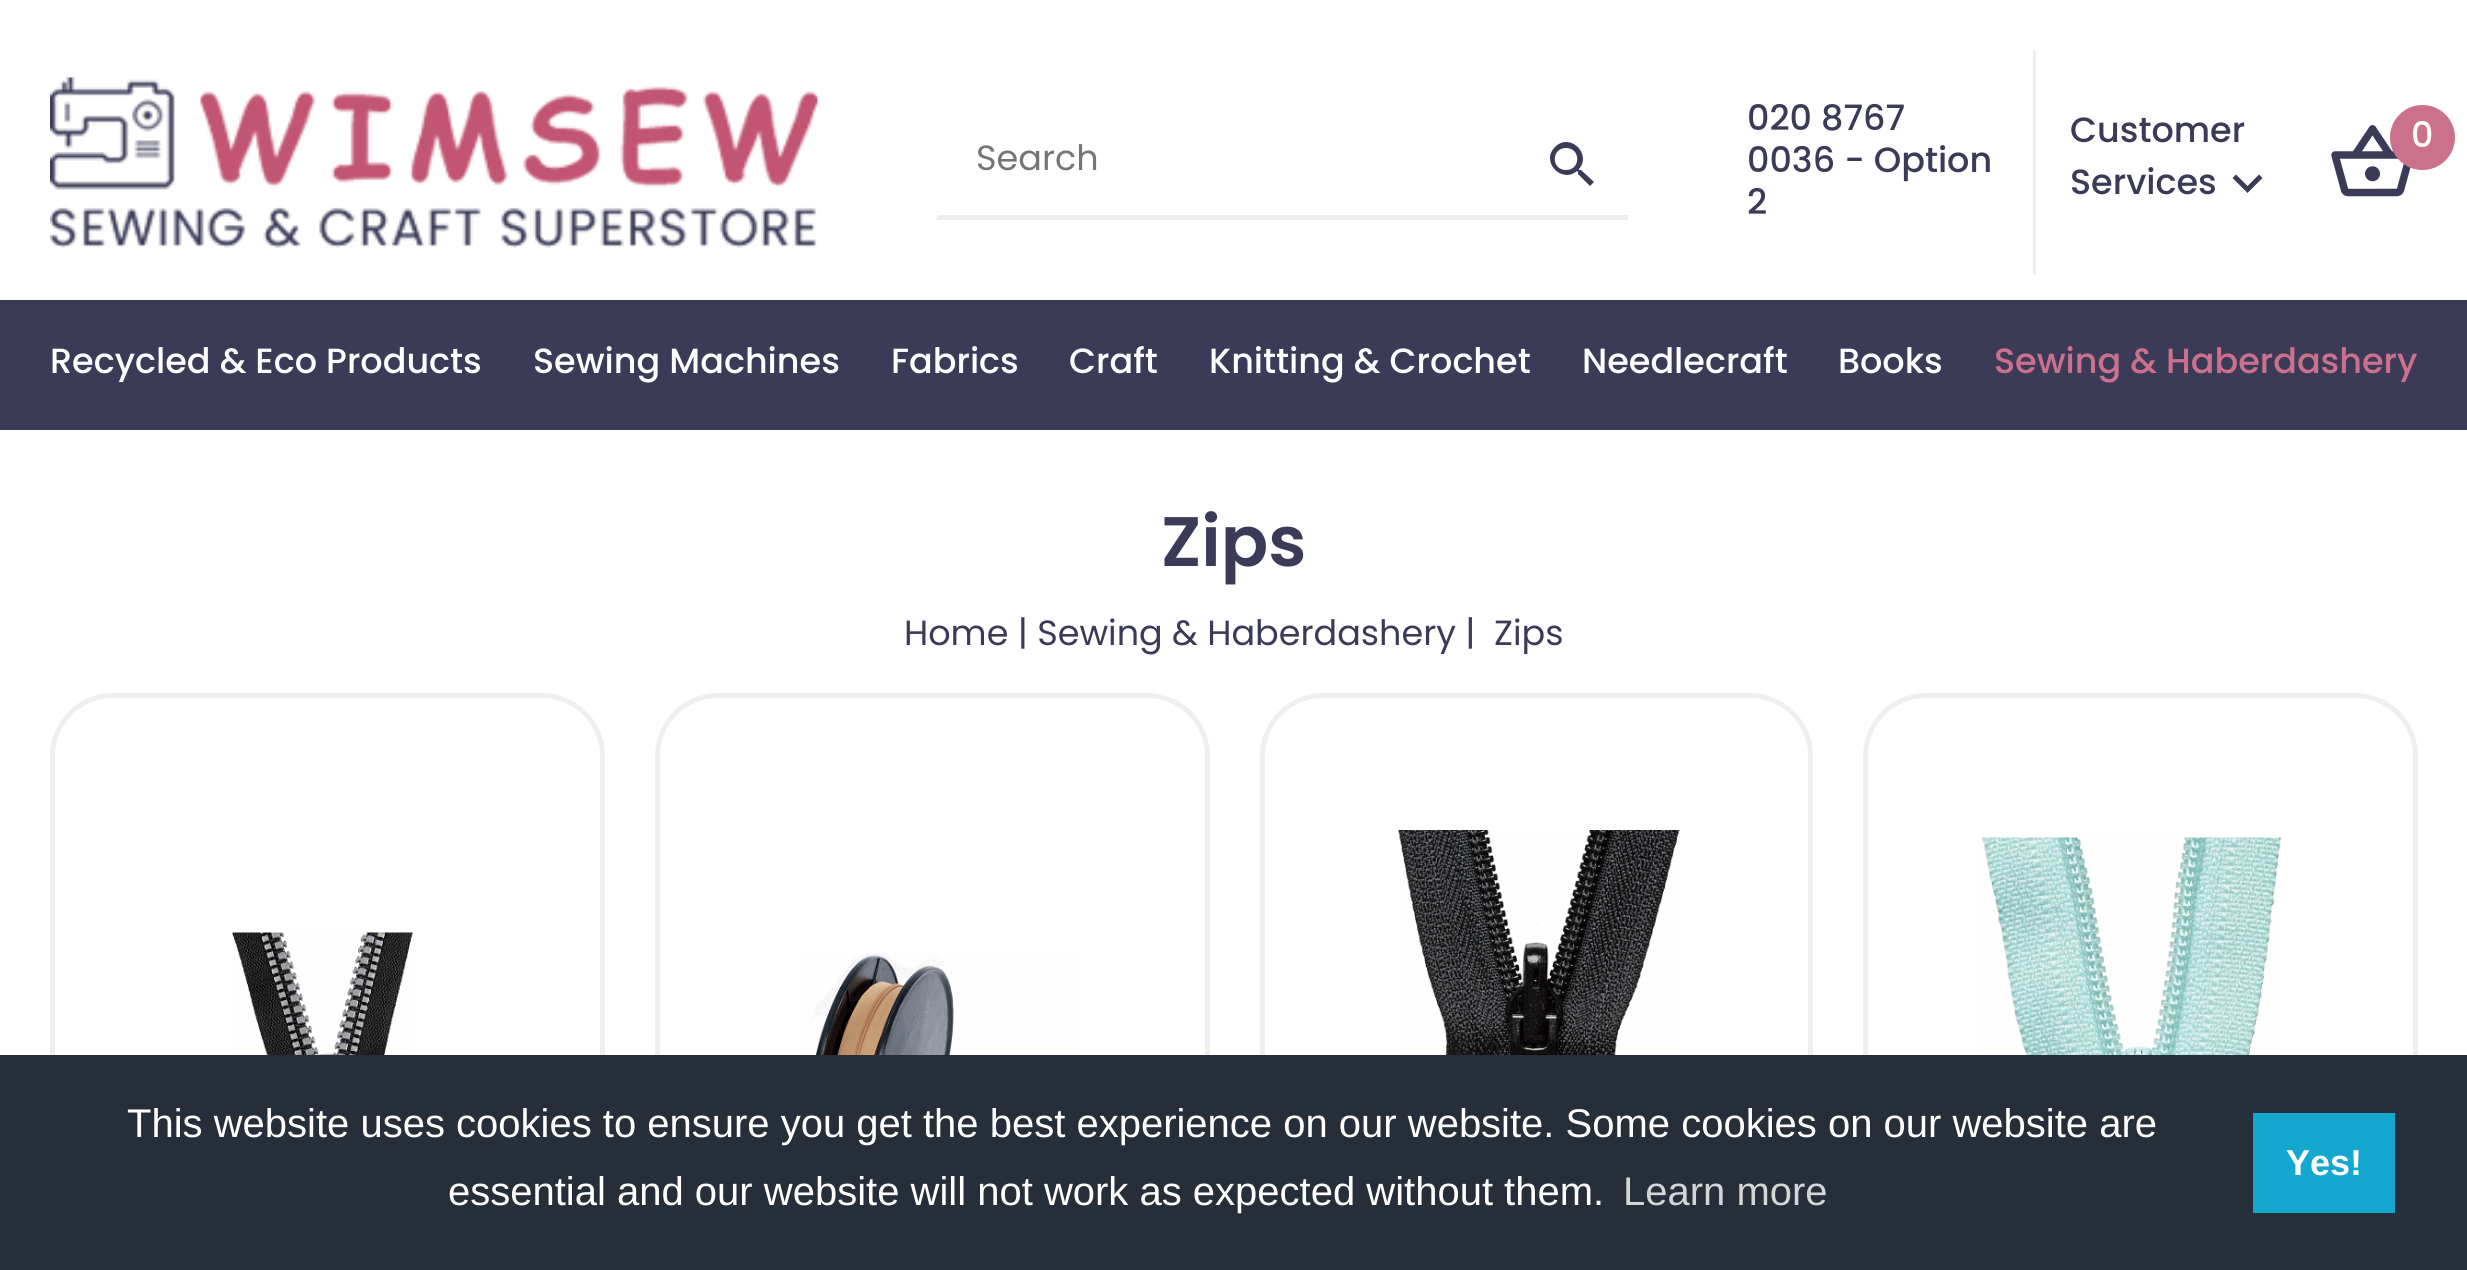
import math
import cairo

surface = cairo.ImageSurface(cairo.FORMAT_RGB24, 2467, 1270)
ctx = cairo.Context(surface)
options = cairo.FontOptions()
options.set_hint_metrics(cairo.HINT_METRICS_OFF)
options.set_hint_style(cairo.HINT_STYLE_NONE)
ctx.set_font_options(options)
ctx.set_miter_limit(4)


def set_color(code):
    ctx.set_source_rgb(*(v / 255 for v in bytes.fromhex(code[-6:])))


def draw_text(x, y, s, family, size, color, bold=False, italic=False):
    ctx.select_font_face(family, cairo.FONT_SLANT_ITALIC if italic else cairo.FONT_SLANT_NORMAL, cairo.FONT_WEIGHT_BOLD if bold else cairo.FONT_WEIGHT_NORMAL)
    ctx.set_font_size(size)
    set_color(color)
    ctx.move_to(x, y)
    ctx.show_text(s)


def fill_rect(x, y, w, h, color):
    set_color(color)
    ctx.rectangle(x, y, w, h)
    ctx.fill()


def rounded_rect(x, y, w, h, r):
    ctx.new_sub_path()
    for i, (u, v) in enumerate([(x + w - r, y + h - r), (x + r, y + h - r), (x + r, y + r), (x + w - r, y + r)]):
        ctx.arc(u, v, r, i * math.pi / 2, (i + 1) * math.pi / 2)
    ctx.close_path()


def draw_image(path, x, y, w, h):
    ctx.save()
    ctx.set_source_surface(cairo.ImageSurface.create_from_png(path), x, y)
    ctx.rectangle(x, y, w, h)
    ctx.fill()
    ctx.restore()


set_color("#ffffff")
ctx.paint()
draw_image("assets/img1.png", 50, 77, 768, 171)
fill_rect(2033, 50, 3, 225, "#efefef")
draw_text(1747, 130, "020 8767", "Poppins Medium", 35, "#3b3b58")
draw_text(1747, 172, "0036 - Option", "Poppins Medium", 35, "#3b3b58")
draw_text(1747, 214, "2", "Poppins Medium", 35, "#3b3b58")
draw_text(2070, 142, "Customer", "Poppins Medium", 35, "#3b3b58")
draw_text(2070, 194, "Services", "Poppins Medium", 35, "#3b3b58")
ctx.new_path()
ctx.move_to(2236, 174.5)
ctx.line_to(2247.5, 186)
ctx.line_to(2259, 174.5)
ctx.line_to(2262.5, 178)
ctx.line_to(2247.5, 193)
ctx.line_to(2232.5, 178)
ctx.close_path()
ctx.fill()
draw_image("assets/img2.png", 2331, 125, 80, 72)
set_color("#cc718b")
ctx.arc(2422.5, 137.5, 32.5, 0, 2 * math.pi)
ctx.fill()
draw_text(2411, 147, "0", "Poppins Medium", 35, "#ffffff")
set_color("#efefef")
ctx.new_path()
ctx.move_to(1628, 220)
ctx.line_to(935, 220)
ctx.line_to(938, 215)
ctx.line_to(1628, 215)
ctx.close_path()
ctx.fill()
set_color("#ffffff")
ctx.new_path()
ctx.move_to(935, 220)
ctx.line_to(935, 105)
ctx.line_to(938, 105)
ctx.line_to(938, 215)
ctx.close_path()
ctx.fill()
draw_text(976, 170, "Search", "Poppins", 35, "#757575")
set_color("#3b3b58")
ctx.new_path()
ctx.move_to(1581, 170)
ctx.line_to(1579, 170)
ctx.line_to(1579, 169)
ctx.curve_to(1592, 154, 1570, 132, 1555, 147)
ctx.curve_to(1540, 162, 1562, 184, 1577, 171)
ctx.line_to(1578, 172)
ctx.line_to(1578, 174)
ctx.line_to(1590, 186)
ctx.line_to(1594, 182)
ctx.close_path()
ctx.move_to(1566, 170)
ctx.curve_to(1551, 170, 1551, 148, 1566, 148)
ctx.curve_to(1581, 148, 1581, 170, 1566, 170)
ctx.close_path()
ctx.fill()
fill_rect(0, 300, 2467, 130, "#3b3b58")
draw_text(50, 373, "Recycled & Eco Products", "Poppins Medium", 35, "#ffffff")
draw_text(533, 373, "Sewing Machines", "Poppins Medium", 35, "#ffffff")
draw_text(891, 373, "Fabrics", "Poppins Medium", 35, "#ffffff")
draw_text(1069, 373, "Craft", "Poppins Medium", 35, "#ffffff")
draw_text(1209, 373, "Knitting & Crochet", "Poppins Medium", 35, "#ffffff")
draw_text(1582, 373, "Needlecraft", "Poppins Medium", 35, "#ffffff")
draw_text(1838, 373, "Books", "Poppins Medium", 35, "#ffffff")
draw_text(1994, 373, "Sewing & Haberdashery", "Poppins Medium", 35, "#cc718b")
draw_text(1161, 566, "Zips", "Poppins SemiBold", 70, "#3b3b58")
draw_text(904, 645, "Home | Sewing & Haberdashery |  Zips", "Poppins", 35, "#3b3b58")
rounded_rect(52.5, 695.5, 550, 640, 60.5)
set_color("#efefef")
ctx.set_line_width(5)
ctx.stroke()
draw_image("assets/img3.png", 232, 932, 181, 123)
rounded_rect(657.5, 695.5, 550, 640, 60.5)
ctx.stroke()
draw_image("assets/img4.png", 802, 952, 278, 103)
rounded_rect(1262.5, 695.5, 548, 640, 60.5)
ctx.stroke()
draw_image("assets/img5.png", 1398, 830, 282, 225)
rounded_rect(1865.5, 695.5, 550, 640, 60.5)
ctx.stroke()
draw_image("assets/img6.png", 1981, 837, 301, 218)
fill_rect(0, 1055, 2467, 215, "#252e39")
draw_text(127, 1137, "This website uses cookies to ensure you get the best experience on our website. Some cookies on our website are", "Liberation Sans", 40, "#ffffff")
draw_text(448, 1205, "essential and our website will not work as expected without them.", "Liberation Sans", 40, "#ffffff")
draw_text(1623, 1205, "Learn more", "Liberation Sans", 40, "#d3d5d7")
fill_rect(2253, 1113, 142, 100, "#14a7d0")
draw_text(2286, 1175, "Yes!", "Liberation Sans", 36, "#ffffff", bold=True)
surface.write_to_png("output.png")
